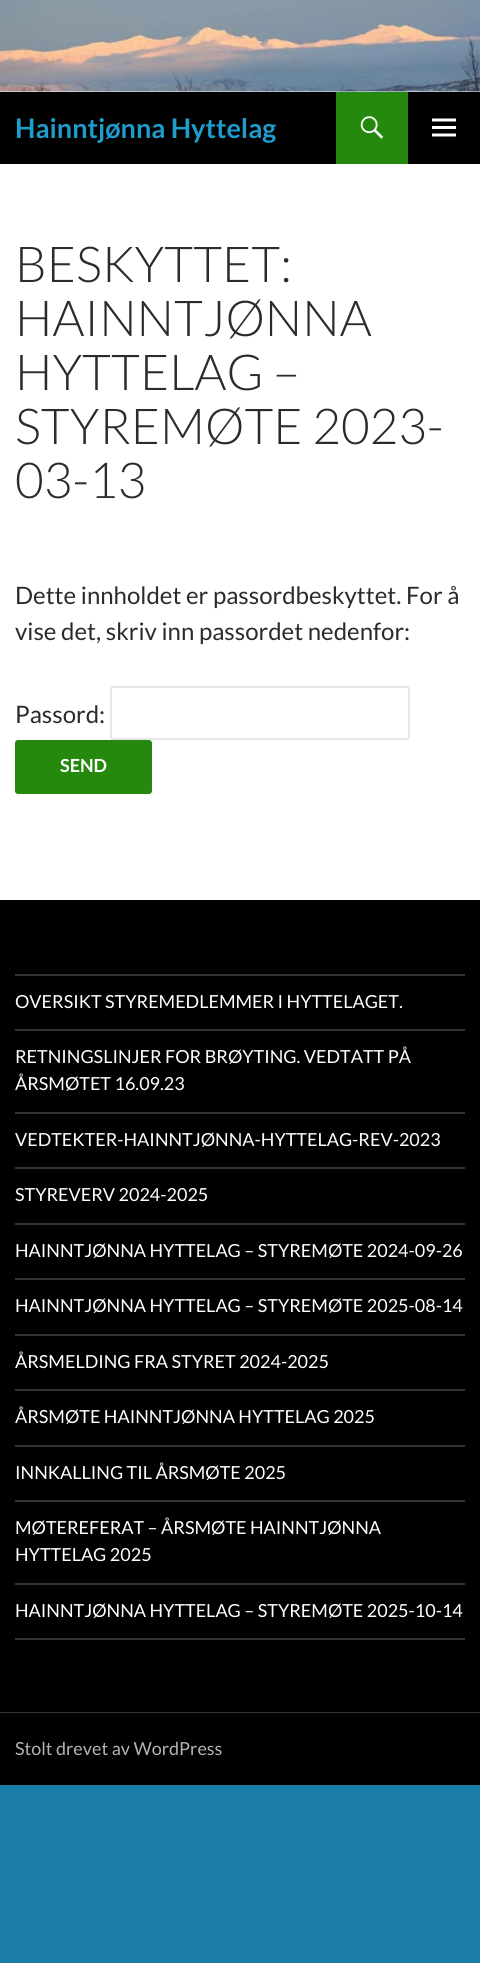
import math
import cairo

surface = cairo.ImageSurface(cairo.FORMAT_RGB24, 480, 1963)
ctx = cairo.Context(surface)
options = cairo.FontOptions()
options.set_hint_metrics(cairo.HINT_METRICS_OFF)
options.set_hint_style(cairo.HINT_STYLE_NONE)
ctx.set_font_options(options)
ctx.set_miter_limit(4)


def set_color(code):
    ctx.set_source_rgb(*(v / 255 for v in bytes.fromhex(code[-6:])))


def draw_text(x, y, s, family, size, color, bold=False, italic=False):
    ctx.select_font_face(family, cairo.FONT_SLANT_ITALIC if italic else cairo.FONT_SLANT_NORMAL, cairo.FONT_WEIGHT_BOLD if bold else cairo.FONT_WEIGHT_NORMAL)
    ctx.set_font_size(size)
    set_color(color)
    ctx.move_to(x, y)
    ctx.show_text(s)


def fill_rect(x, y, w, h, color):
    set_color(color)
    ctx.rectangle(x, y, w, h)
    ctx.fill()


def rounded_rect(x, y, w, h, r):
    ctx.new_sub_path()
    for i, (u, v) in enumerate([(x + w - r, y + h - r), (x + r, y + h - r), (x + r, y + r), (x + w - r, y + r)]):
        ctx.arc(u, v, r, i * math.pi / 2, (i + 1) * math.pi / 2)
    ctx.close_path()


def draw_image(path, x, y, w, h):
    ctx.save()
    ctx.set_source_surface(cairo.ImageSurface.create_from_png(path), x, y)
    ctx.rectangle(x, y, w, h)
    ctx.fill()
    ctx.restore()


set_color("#197da8")
ctx.paint()
fill_rect(0, 91, 480, 809, "#ffffff")
draw_image("assets/img1.png", 0, 0, 480, 92)
fill_rect(0, 92, 480, 72, "#000000")
draw_text(15, 138, "Hainntjønna Hyttelag", "Lato", 27, "#1e9dcc", bold=True)
fill_rect(336, 92, 72, 72, "#24890d")
draw_image("assets/img2.png", 360, 116, 24, 23)
draw_image("assets/img3.png", 432, 118, 24, 19)
draw_text(15, 282, "BESKYTTET:", "Lato Light", 49.5, "#2b2b2b")
draw_text(15, 336, "HAINNTJØNNA", "Lato Light", 49.5, "#2b2b2b")
draw_text(15, 390, "HYTTELAG –", "Lato Light", 49.5, "#2b2b2b")
draw_text(15, 444, "STYREMØTE 2023-", "Lato Light", 49.5, "#2b2b2b")
draw_text(15, 498, "03-13", "Lato Light", 49.5, "#2b2b2b")
draw_text(15, 604, "Dette innholdet er passordbeskyttet. For å", "Lato", 24, "#2b2b2b")
draw_text(15, 640, "vise det, skriv inn passordet nedenfor:", "Lato", 24, "#2b2b2b")
draw_text(15, 723, "Passord:", "Lato", 24, "#2b2b2b")
rounded_rect(111, 687, 298, 52, 2)
set_color("#e6e6e6")
ctx.stroke()
set_color("#24890d")
rounded_rect(15, 740, 137, 54, 3)
ctx.fill()
draw_text(60, 772, "SEND", "Lato", 18, "#ffffff", bold=True)
fill_rect(0, 900, 480, 812, "#000000")
fill_rect(0, 1712, 480, 1, "#333333")
fill_rect(15, 1638, 450, 2, "#333333")
fill_rect(15, 974, 450, 2, "#333333")
draw_text(15, 1008, "OVERSIKT STYREMEDLEMMER I HYTTELAGET.", "Lato", 18, "#ffffff")
fill_rect(15, 1029, 450, 2, "#333333")
draw_text(15, 1063, "RETNINGSLINJER FOR BRØYTING. VEDTATT PÅ", "Lato", 18, "#ffffff")
draw_text(15, 1090, "ÅRSMØTET 16.09.23", "Lato", 18, "#ffffff")
fill_rect(15, 1112, 450, 2, "#333333")
draw_text(15, 1146, "VEDTEKTER-HAINNTJØNNA-HYTTELAG-REV-2023", "Lato", 18, "#ffffff")
fill_rect(15, 1167, 450, 2, "#333333")
draw_text(15, 1201, "STYREVERV 2024-2025", "Lato", 18, "#ffffff")
fill_rect(15, 1223, 450, 2, "#333333")
draw_text(15, 1257, "HAINNTJØNNA HYTTELAG – STYREMØTE 2024-09-26", "Lato", 18, "#ffffff")
fill_rect(15, 1278, 450, 2, "#333333")
draw_text(15, 1312, "HAINNTJØNNA HYTTELAG – STYREMØTE 2025-08-14", "Lato", 18, "#ffffff")
fill_rect(15, 1334, 450, 2, "#333333")
draw_text(15, 1368, "ÅRSMELDING FRA STYRET 2024-2025", "Lato", 18, "#ffffff")
fill_rect(15, 1389, 450, 2, "#333333")
draw_text(15, 1423, "ÅRSMØTE HAINNTJØNNA HYTTELAG 2025", "Lato", 18, "#ffffff")
fill_rect(15, 1445, 450, 2, "#333333")
draw_text(15, 1479, "INNKALLING TIL ÅRSMØTE 2025", "Lato", 18, "#ffffff")
fill_rect(15, 1500, 450, 2, "#333333")
draw_text(15, 1534, "MØTEREFERAT – ÅRSMØTE HAINNTJØNNA", "Lato", 18, "#ffffff")
draw_text(15, 1561, "HYTTELAG 2025", "Lato", 18, "#ffffff")
fill_rect(15, 1583, 450, 2, "#333333")
draw_text(15, 1617, "HAINNTJØNNA HYTTELAG – STYREMØTE 2025-10-14", "Lato", 18, "#ffffff")
fill_rect(0, 1713, 480, 72, "#000000")
draw_text(15, 1755, "Stolt drevet av WordPress", "Lato", 18, "#b3b3b3")
surface.write_to_png("output.png")
